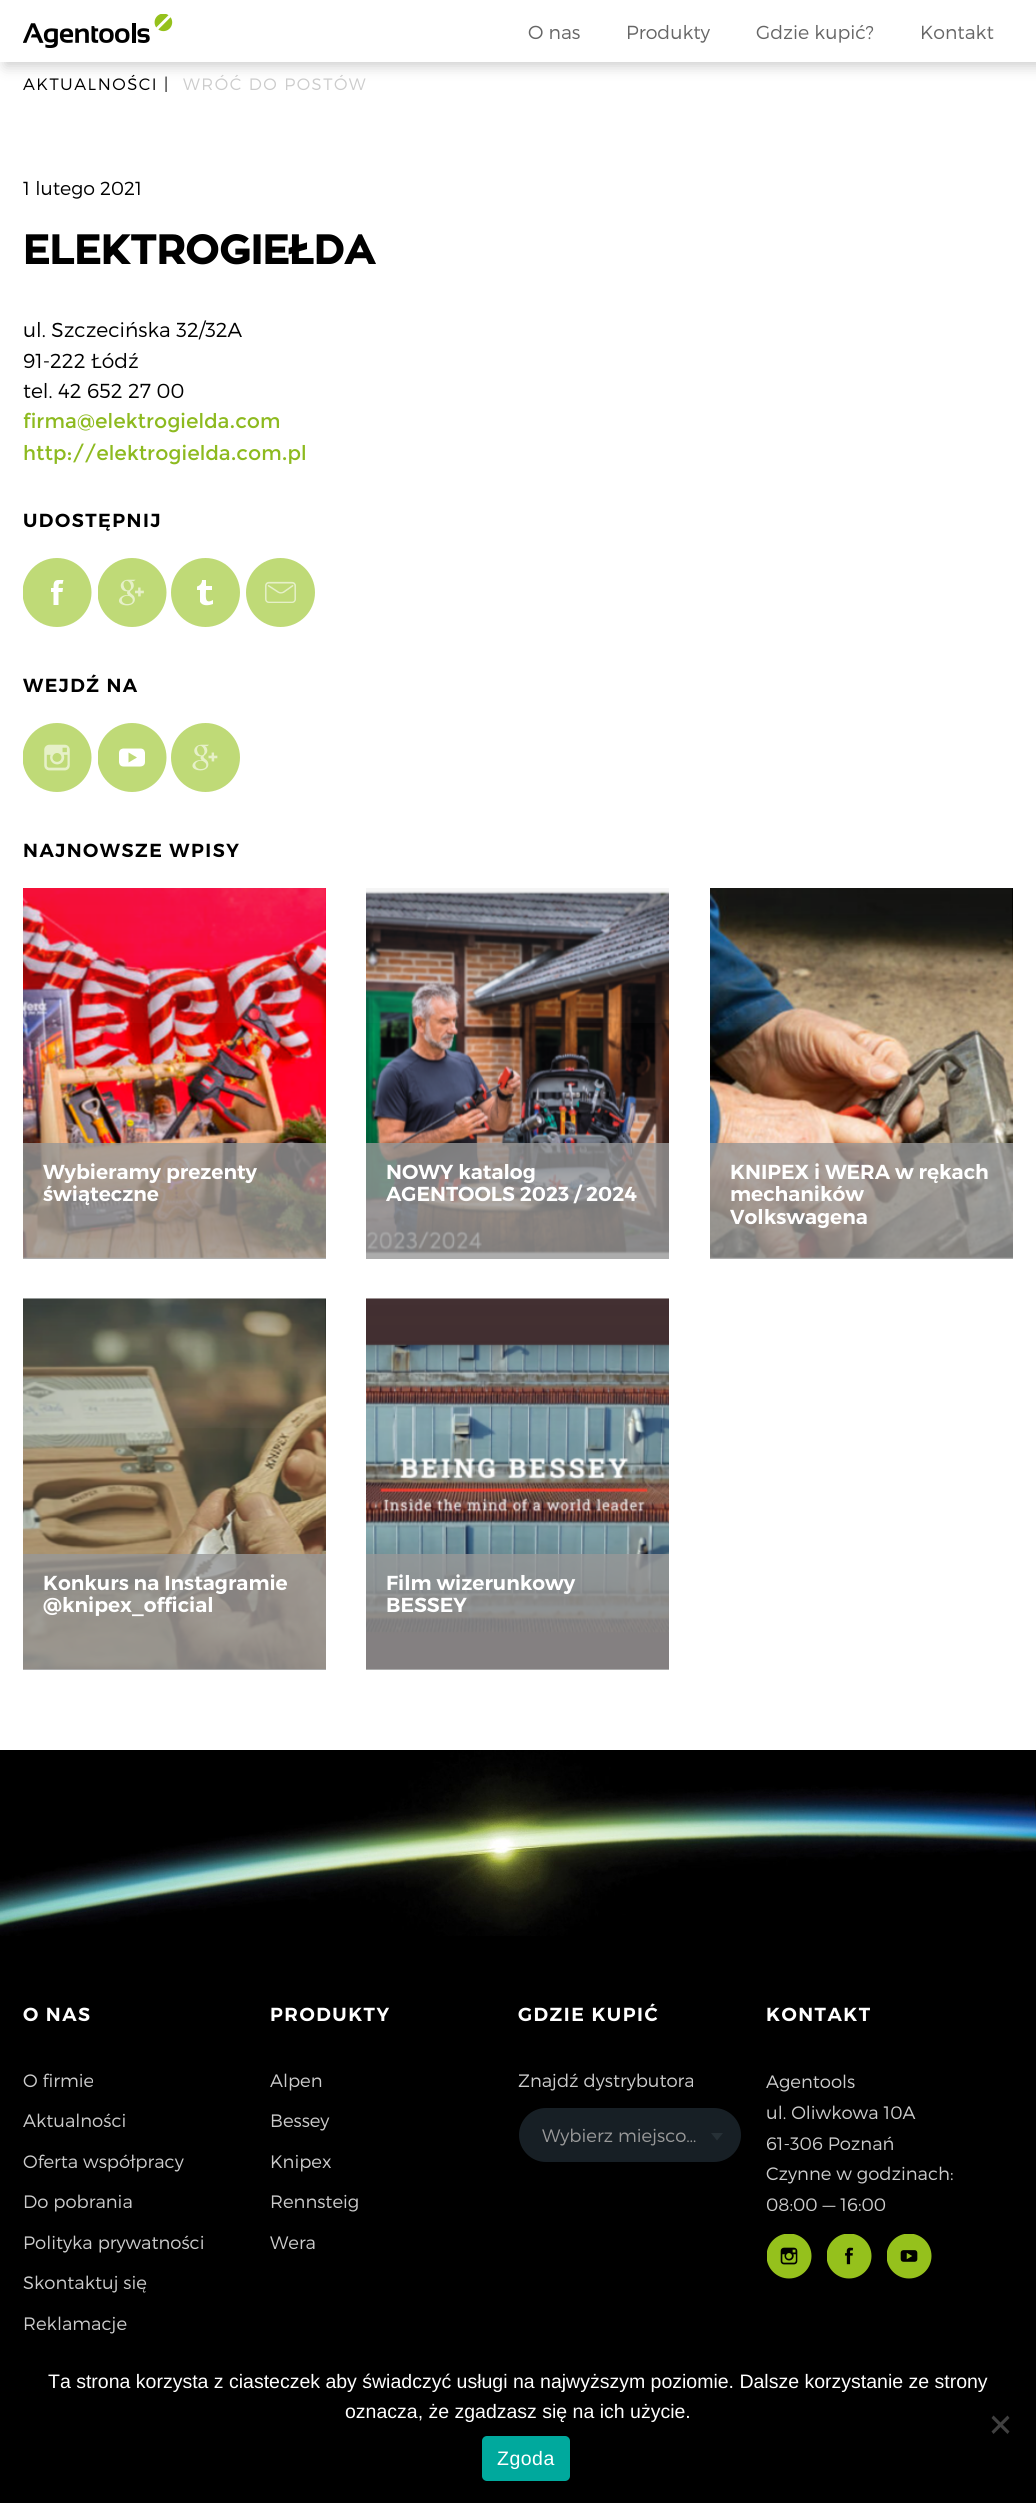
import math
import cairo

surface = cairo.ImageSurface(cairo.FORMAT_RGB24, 1036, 2503)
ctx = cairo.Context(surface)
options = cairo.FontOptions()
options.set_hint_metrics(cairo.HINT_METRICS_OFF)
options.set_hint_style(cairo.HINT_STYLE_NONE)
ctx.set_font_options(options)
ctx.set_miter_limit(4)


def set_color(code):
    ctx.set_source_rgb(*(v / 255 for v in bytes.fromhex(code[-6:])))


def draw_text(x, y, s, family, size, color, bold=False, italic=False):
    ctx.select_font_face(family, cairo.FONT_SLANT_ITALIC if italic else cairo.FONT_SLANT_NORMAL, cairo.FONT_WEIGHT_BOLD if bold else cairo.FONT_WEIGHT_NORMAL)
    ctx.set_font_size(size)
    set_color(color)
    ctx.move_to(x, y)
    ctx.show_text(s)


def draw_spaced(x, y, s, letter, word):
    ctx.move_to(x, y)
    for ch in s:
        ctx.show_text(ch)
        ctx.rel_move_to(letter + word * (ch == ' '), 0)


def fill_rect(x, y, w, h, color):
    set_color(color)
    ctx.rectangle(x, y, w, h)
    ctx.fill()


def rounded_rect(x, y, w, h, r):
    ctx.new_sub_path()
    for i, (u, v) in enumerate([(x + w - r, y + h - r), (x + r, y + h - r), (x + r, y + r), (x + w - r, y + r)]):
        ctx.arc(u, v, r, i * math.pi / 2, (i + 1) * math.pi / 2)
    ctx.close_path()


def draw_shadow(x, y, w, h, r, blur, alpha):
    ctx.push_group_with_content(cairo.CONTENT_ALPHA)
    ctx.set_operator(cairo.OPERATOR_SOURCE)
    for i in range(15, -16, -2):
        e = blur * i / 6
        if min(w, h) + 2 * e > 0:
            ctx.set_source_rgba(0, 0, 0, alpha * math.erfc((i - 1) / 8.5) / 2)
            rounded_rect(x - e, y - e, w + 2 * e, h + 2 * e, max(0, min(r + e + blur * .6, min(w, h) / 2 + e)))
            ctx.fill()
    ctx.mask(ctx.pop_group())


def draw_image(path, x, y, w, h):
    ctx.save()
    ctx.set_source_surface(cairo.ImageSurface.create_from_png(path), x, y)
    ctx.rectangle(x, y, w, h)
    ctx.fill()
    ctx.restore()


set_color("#ffffff")
ctx.paint()
set_color("#000000")
draw_shadow(5, 5, 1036, 61, 0, 7, 0.2)
fill_rect(0, 0, 1036, 62, "#ffffff")
draw_image("assets/img1.png", 23, 14, 150, 34)
draw_text(528, 39, "O nas", "Montserrat Light", 18.9, "#666666")
draw_text(626, 39, "Produkty", "Montserrat Light", 18.9, "#666666")
draw_text(756, 39, "Gdzie kupić?", "Montserrat Light", 18.9, "#666666")
draw_text(920, 39, "Kontakt", "Montserrat Light", 18.9, "#666666")
ctx.set_font_size(16.5)
set_color("#000000")
draw_spaced(23, 90, "AKTUALNOŚCI", 1.5, 0)
draw_spaced(164, 90, "|", 1.5, 0)
set_color("#cccccc")
draw_spaced(183, 90, "WRÓĆ DO POSTÓW", 1.5, 0)
draw_text(23, 195, "1 lutego 2021", "Montserrat Light", 18.9, "#000000")
draw_text(23, 264, "ELEKTROGIEŁDA", "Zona", 40.5, "#000000", bold=True)
draw_text(23, 337, "ul. Szczecińska 32/32A", "Montserrat Light", 20.25, "#000000")
draw_text(23, 368, "91-222 Łódź", "Montserrat Light", 20.25, "#000000")
draw_text(23, 398, "tel. 42 652 27 00", "Montserrat Light", 20.25, "#000000")
draw_text(23, 428, "firma@elektrogielda.com", "Montserrat", 20.25, "#8dba1f")
draw_text(23, 460, "http://elektrogielda.com.pl", "Montserrat", 20.25, "#8dba1f")
ctx.select_font_face("Montserrat SemiBold")
ctx.set_font_size(18.9)
set_color("#000000")
draw_spaced(23, 527, "UDOSTĘPNIJ", 1.5, 0)
ctx.save()
ctx.rectangle(23, 558, 69, 69)
ctx.clip()
set_color("#bfda77")
ctx.arc(57, 592.5, 34.5, 0, 2 * math.pi)
ctx.fill()
ctx.restore()
draw_image("assets/img2.png", 98, 558, 69, 69)
set_color("#bfda77")
ctx.arc(205.5, 592.5, 34.5, 0, 2 * math.pi)
ctx.fill()
draw_image("assets/img3.png", 246, 558, 69, 69)
set_color("#ffffff")
ctx.new_path()
ctx.move_to(51, 588)
ctx.line_to(53.5, 588)
ctx.curve_to(53.5, 583.5, 53.5, 579.5, 59.5, 580)
ctx.line_to(63.5, 580)
ctx.line_to(62.5, 584)
ctx.curve_to(58.5, 583, 58.5, 584.5, 58.5, 588)
ctx.line_to(63, 588)
ctx.line_to(62.5, 592)
ctx.line_to(58.5, 592)
ctx.line_to(58.5, 605)
ctx.line_to(53.5, 605)
ctx.line_to(53.5, 592)
ctx.line_to(51, 592)
ctx.close_path()
ctx.fill()
ctx.new_path()
ctx.move_to(206, 580)
ctx.line_to(206, 586)
ctx.line_to(212, 586)
ctx.line_to(212, 590)
ctx.line_to(206, 590)
ctx.curve_to(206, 595.5, 204, 605, 213, 600)
ctx.line_to(213, 604)
ctx.curve_to(209, 605.5, 202, 606.5, 200, 601.5)
ctx.line_to(200, 590)
ctx.line_to(197, 590)
ctx.line_to(197, 586.5)
ctx.curve_to(200.5, 585.5, 202, 583, 202, 580)
ctx.close_path()
ctx.fill()
set_color("#000000")
draw_spaced(23, 692, "WEJDŹ NA", 1.5, 0)
draw_image("assets/img4.png", 23, 723, 69, 69)
ctx.save()
ctx.rectangle(98, 723, 69, 69)
ctx.clip()
set_color("#bfda77")
ctx.arc(132, 757.5, 34.5, 0, 2 * math.pi)
ctx.fill()
ctx.restore()
draw_image("assets/img5.png", 171, 723, 69, 69)
set_color("#ffffff")
ctx.new_path()
ctx.move_to(137, 757.5)
ctx.line_to(128.5, 762.5)
ctx.line_to(128.5, 752.5)
ctx.close_path()
ctx.move_to(145, 762)
ctx.line_to(145, 753)
ctx.curve_to(145, 753, 145, 748.5, 140.5, 748.5)
ctx.line_to(123.5, 748.5)
ctx.curve_to(123.5, 748.5, 119, 748.5, 119, 753)
ctx.line_to(119, 762)
ctx.curve_to(119, 762, 119, 766.5, 123.5, 766.5)
ctx.line_to(140, 766.5)
ctx.curve_to(140.5, 766.5, 145, 766.5, 145, 762)
ctx.fill()
set_color("#000000")
draw_spaced(23, 857, "NAJNOWSZE WPISY", 1.5, 0)
draw_image("assets/img6.png", 23, 888, 303, 370)
draw_image("assets/img7.png", 23, 888, 302, 135)
ctx.set_source_rgba(0.592, 0.592, 0.592, 0.8)
ctx.rectangle(23, 1143, 303, 116)
ctx.fill()
draw_text(43, 1179, "Wybieramy prezenty", "Montserrat SemiBold", 20.25, "#ffffff")
draw_text(43, 1201, "świąteczne", "Montserrat SemiBold", 20.25, "#ffffff")
draw_image("assets/img9.png", 366, 891, 303, 363)
draw_image("assets/img8.png", 366, 888, 303, 135)
ctx.set_source_rgba(0.592, 0.592, 0.592, 0.8)
ctx.rectangle(366, 1143, 303, 116)
ctx.fill()
draw_text(386, 1179, "NOWY katalog", "Montserrat SemiBold", 20.25, "#ffffff")
draw_text(386, 1201, "AGENTOOLS 2023 / 2024", "Montserrat SemiBold", 20.25, "#ffffff")
draw_image("assets/img10.png", 710, 888, 303, 370)
draw_image("assets/img11.png", 710, 888, 302, 135)
ctx.set_source_rgba(0.592, 0.592, 0.592, 0.8)
ctx.rectangle(710, 1143, 303, 116)
ctx.fill()
draw_text(730, 1179, "KNIPEX i WERA w rękach", "Montserrat SemiBold", 20.25, "#ffffff")
draw_text(730, 1201, "mechaników", "Montserrat SemiBold", 20.25, "#ffffff")
draw_text(730, 1224, "Volkswagena", "Montserrat SemiBold", 20.25, "#ffffff")
draw_image("assets/img12.png", 23, 1298, 303, 371)
draw_image("assets/img13.png", 23, 1299, 302, 129)
ctx.set_source_rgba(0.592, 0.592, 0.592, 0.8)
ctx.rectangle(23, 1554, 303, 116)
ctx.fill()
draw_text(43, 1590, "Konkurs na Instagramie", "Montserrat SemiBold", 20.25, "#ffffff")
draw_text(43, 1612, "@knipex_official", "Montserrat SemiBold", 20.25, "#ffffff")
draw_image("assets/img14.png", 366, 1298, 303, 371)
draw_image("assets/img15.png", 366, 1299, 303, 135)
ctx.set_source_rgba(0.592, 0.592, 0.592, 0.8)
ctx.rectangle(366, 1554, 303, 116)
ctx.fill()
draw_text(386, 1590, "Film wizerunkowy", "Montserrat SemiBold", 20.25, "#ffffff")
draw_text(386, 1612, "BESSEY", "Montserrat SemiBold", 20.25, "#ffffff")
fill_rect(0, 1936, 1036, 567, "#000000")
draw_image("assets/img16.png", 0, 1750, 1036, 186)
ctx.set_font_size(18.9)
set_color("#ffffff")
draw_spaced(23, 2021, "O NAS", 1.5, 0)
draw_text(23, 2087, "O firmie", "Montserrat Light", 18, "#cccccc")
draw_text(23, 2127, "Aktualności", "Montserrat Light", 18, "#cccccc")
draw_text(23, 2168, "Oferta współpracy", "Montserrat Light", 18, "#cccccc")
draw_text(23, 2208, "Do pobrania", "Montserrat Light", 18, "#cccccc")
draw_text(23, 2249, "Polityka prywatności", "Montserrat Light", 18, "#cccccc")
draw_text(23, 2289, "Skontaktuj się", "Montserrat Light", 18, "#cccccc")
draw_text(23, 2330, "Reklamacje", "Montserrat Light", 18, "#cccccc")
ctx.select_font_face("Montserrat SemiBold")
ctx.set_font_size(18.9)
set_color("#ffffff")
draw_spaced(270, 2021, "PRODUKTY", 1.5, 0)
draw_text(270, 2087, "Alpen", "Montserrat Light", 18, "#cccccc")
draw_text(270, 2127, "Bessey", "Montserrat Light", 18, "#cccccc")
draw_text(270, 2168, "Knipex", "Montserrat Light", 18, "#cccccc")
draw_text(270, 2208, "Rennsteig", "Montserrat Light", 18, "#cccccc")
draw_text(270, 2249, "Wera", "Montserrat Light", 18, "#cccccc")
ctx.select_font_face("Montserrat SemiBold")
ctx.set_font_size(18.9)
set_color("#ffffff")
draw_spaced(518, 2021, "GDZIE KUPIĆ", 1.5, 0)
draw_text(518, 2087, "Znajdź dystrybutora", "Montserrat Light", 18, "#cccccc")
set_color("#171f25")
rounded_rect(519, 2108, 222, 54, 27)
ctx.fill()
draw_text(542, 2142, "Wybierz miejsco…", "Montserrat Light", 18, "#999999")
set_color("#263036")
ctx.new_path()
ctx.move_to(711, 2133)
ctx.line_to(723, 2133)
ctx.line_to(717, 2140.5)
ctx.close_path()
ctx.fill()
ctx.select_font_face("Montserrat SemiBold")
ctx.set_font_size(18.9)
set_color("#ffffff")
draw_spaced(766, 2021, "KONTAKT", 1.5, 0)
draw_text(766, 2088, "Agentools", "Montserrat Light", 18, "#cccccc")
draw_text(766, 2119, "ul. Oliwkowa 10A", "Montserrat Light", 18, "#cccccc")
draw_text(766, 2150, "61-306 Poznań", "Montserrat Light", 18, "#cccccc")
draw_text(766, 2180, "Czynne w godzinach:", "Montserrat Light", 18, "#cccccc")
draw_text(766, 2211, "08:00 — 16:00", "Montserrat Light", 18, "#cccccc")
draw_image("assets/img17.png", 767, 2234, 45, 45)
draw_image("assets/img18.png", 827, 2234, 45, 45)
draw_image("assets/img19.png", 887, 2234, 45, 45)
draw_text(48, 2388, "Ta strona korzysta z ciasteczek aby świadczyć usługi na najwyższym poziomie. Dalsze korzystanie ze strony", "Liberation Sans", 19.5, "#ffffff")
draw_text(345, 2418, "oznacza, że zgadzasz się na ich użycie.", "Liberation Sans", 19.5, "#ffffff")
set_color("#404040")
ctx.new_path()
ctx.move_to(1007.5, 2415.5)
ctx.line_to(1009.5, 2418)
ctx.line_to(993.5, 2434)
ctx.line_to(991.5, 2431.5)
ctx.close_path()
ctx.fill()
ctx.new_path()
ctx.move_to(991.5, 2418)
ctx.line_to(993.5, 2415.5)
ctx.line_to(1009.5, 2431.5)
ctx.line_to(1007.5, 2434)
ctx.close_path()
ctx.fill()
set_color("#00a99d")
rounded_rect(482, 2436, 88, 45, 5)
ctx.fill()
set_color("#ffffff")
draw_spaced(497, 2465, "Zgoda", 0.5, 0)
surface.write_to_png("output.png")
